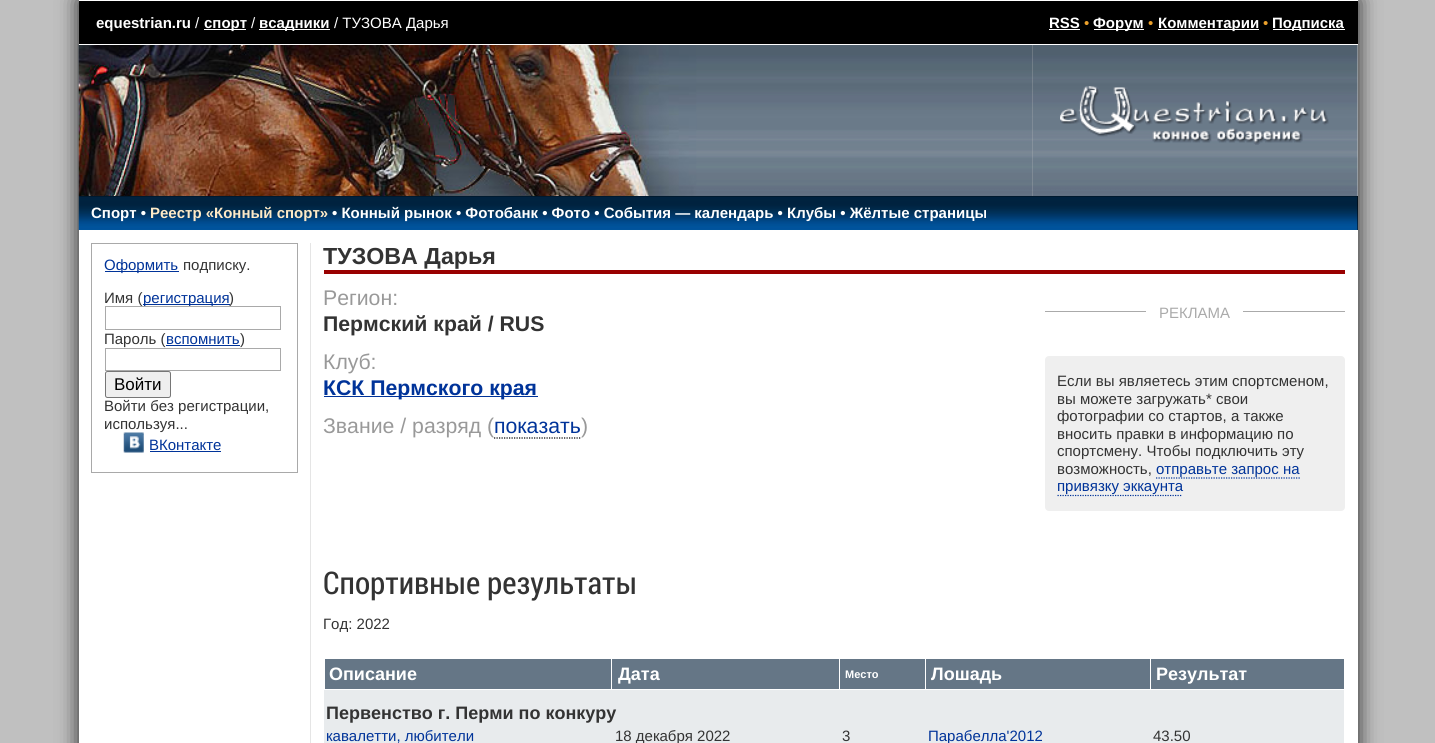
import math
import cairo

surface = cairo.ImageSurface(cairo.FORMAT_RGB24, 1435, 743)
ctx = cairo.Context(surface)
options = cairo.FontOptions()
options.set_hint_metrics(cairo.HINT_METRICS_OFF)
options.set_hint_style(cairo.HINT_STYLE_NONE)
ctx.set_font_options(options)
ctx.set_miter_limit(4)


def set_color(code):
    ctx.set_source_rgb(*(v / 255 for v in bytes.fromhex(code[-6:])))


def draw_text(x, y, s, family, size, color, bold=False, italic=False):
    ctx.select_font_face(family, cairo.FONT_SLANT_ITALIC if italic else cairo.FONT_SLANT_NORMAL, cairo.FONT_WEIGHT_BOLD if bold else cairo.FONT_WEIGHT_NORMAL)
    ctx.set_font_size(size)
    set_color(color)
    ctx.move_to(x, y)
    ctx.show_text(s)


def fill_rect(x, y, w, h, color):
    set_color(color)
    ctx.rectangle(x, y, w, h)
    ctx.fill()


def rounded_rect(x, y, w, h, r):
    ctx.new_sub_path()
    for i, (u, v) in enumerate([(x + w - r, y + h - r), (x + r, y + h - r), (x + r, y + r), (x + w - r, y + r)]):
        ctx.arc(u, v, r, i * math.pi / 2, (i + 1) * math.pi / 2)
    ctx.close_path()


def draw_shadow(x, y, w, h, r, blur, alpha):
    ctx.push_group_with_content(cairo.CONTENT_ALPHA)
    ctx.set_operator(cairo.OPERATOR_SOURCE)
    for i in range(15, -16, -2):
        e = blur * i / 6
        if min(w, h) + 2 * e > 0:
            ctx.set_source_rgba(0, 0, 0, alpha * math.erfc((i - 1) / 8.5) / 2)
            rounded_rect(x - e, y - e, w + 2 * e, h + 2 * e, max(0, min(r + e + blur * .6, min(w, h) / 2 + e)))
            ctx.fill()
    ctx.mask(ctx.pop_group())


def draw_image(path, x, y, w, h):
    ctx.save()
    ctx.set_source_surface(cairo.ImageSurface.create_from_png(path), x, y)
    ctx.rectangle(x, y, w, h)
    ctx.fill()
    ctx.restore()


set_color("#c0c0c0")
ctx.paint()
set_color("#212121")
draw_shadow(79, 0, 1279, 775, 0, 10.5, 1)
fill_rect(1032, 45, 326, 151, "#c0c0c0")
fill_rect(79, 1, 1279, 43, "#000000")
fill_rect(79, 0, 1279, 1, "#ffffff")
fill_rect(79, 44, 1279, 1, "#ffffff")
draw_text(96, 28, "equestrian.ru", "Liberation Sans", 15, "#ffffff", bold=True)
draw_text(195, 28, "/", "Liberation Sans", 15, "#ffffff")
fill_rect(204, 29, 42, 1, "#ffffff")
draw_text(204, 28, "спорт", "Liberation Sans", 15, "#ffffff", bold=True)
draw_text(251, 28, "/", "Liberation Sans", 15, "#ffffff")
fill_rect(259, 29, 71, 1, "#ffffff")
draw_text(259, 28, "всадники", "Liberation Sans", 15, "#ffffff", bold=True)
draw_text(334, 28, "/ ТУЗОВА Дарья", "Liberation Sans", 15, "#ffffff")
draw_text(1049, 28, "RSS", "Liberation Sans", 15, "#ffffff", bold=True)
fill_rect(1049, 29, 31, 1, "#ffffff")
draw_text(1084, 28, "•", "Liberation Sans", 15, "#eba02b")
fill_rect(1094, 29, 50, 1, "#ffffff")
draw_text(1093, 28, "Форум", "Liberation Sans", 15, "#ffffff", bold=True)
draw_text(1148, 28, "•", "Liberation Sans", 15, "#eba02b")
fill_rect(1158, 29, 101, 1, "#ffffff")
draw_text(1158, 28, "Комментарии", "Liberation Sans", 15, "#ffffff", bold=True)
draw_text(1263, 28, "•", "Liberation Sans", 15, "#eba02b")
fill_rect(1273, 29, 72, 1, "#ffffff")
draw_text(1272, 28, "Подписка", "Liberation Sans", 15, "#ffffff", bold=True)
draw_image("assets/img1.png", 78, 45, 955, 152)
draw_image("assets/img2.png", 78, 45, 619, 152)
draw_image("assets/img3.png", 1032, 45, 326, 151)
draw_image("assets/img4.png", 1060, 86, 269, 59)
fill_rect(79, 196, 1279, 34, "#000000")
draw_image("assets/img5.png", 78, 196, 1280, 34)
draw_text(91, 218, "Спорт •", "Liberation Sans", 15, "#ffffff", bold=True)
draw_text(150, 218, "Реестр «Конный спорт»", "Liberation Sans", 15, "#feeac7", bold=True)
draw_text(332, 218, "• Конный рынок • Фотобанк • Фото • События — календарь • Клубы • Жёлтые страницы", "Liberation Sans", 15, "#ffffff", bold=True)
fill_rect(79, 230, 1279, 513, "#ffffff")
fill_rect(310, 243, 1, 500, "#e5e5e5")
ctx.rectangle(91.5, 243.5, 206, 229)
set_color("#a9a9a9")
ctx.set_line_width(1)
ctx.stroke()
fill_rect(105, 271, 74, 1, "#003399")
draw_text(104, 270, "Оформить", "Liberation Sans", 15, "#003399")
draw_text(183, 270, "подписку.", "Liberation Sans", 15, "#333333")
draw_text(104, 303, "Имя (", "Liberation Sans", 15, "#333333")
fill_rect(143, 304, 87, 1, "#003399")
draw_text(143, 303, "регистрация", "Liberation Sans", 15, "#003399")
draw_text(229, 303, ")", "Liberation Sans", 15, "#333333")
ctx.rectangle(105.5, 306.5, 175, 23)
set_color("#a9a9a9")
ctx.stroke()
draw_text(104, 344, "Пароль (", "Liberation Sans", 15, "#333333")
draw_text(166, 344, "вспомнить", "Liberation Sans", 15, "#003399")
fill_rect(166, 345, 74, 1, "#003399")
draw_text(240, 344, ")", "Liberation Sans", 15, "#333333")
ctx.rectangle(105.5, 348.5, 175, 22)
set_color("#a9a9a9")
ctx.stroke()
set_color("#efefef")
rounded_rect(105.5, 371.5, 65, 26, 2)
ctx.fill_preserve()
set_color("#767676")
ctx.stroke()
draw_text(114, 390, "Войти", "Liberation Sans", 17, "#000000")
draw_text(104, 411, "Войти без регистрации,", "Liberation Sans", 15, "#333333")
draw_text(104, 429, "используя...", "Liberation Sans", 15, "#333333")
draw_image("assets/img6.png", 123, 432, 21, 21)
draw_text(149, 450, "ВКонтакте", "Liberation Sans", 15, "#003399")
fill_rect(150, 451, 71, 1, "#003399")
fill_rect(324, 270, 1021, 4, "#990000")
draw_text(323, 264, "ТУЗОВА Дарья", "Liberation Sans", 23.25, "#333333", bold=True)
draw_text(323, 305, "Регион:", "Liberation Sans", 21.25, "#999999")
draw_text(323, 331, "Пермский край / RUS", "Liberation Sans", 21.25, "#333333", bold=True)
draw_text(323, 369, "Клуб:", "Liberation Sans", 21.25, "#999999")
fill_rect(324, 396, 214, 1, "#003399")
draw_text(323, 395, "КСК Пермского края", "Liberation Sans", 21.25, "#003399", bold=True)
draw_text(323, 433, "Звание / разряд (", "Liberation Sans", 21.25, "#999999")
draw_text(494, 433, "показать", "Liberation Sans", 21.25, "#003399")
ctx.new_path()
ctx.move_to(494, 438)
ctx.line_to(581, 438)
set_color("#000000")
ctx.set_line_width(1.2)
ctx.set_dash([1.25, 1.25])
ctx.stroke()
draw_text(581, 433, ")", "Liberation Sans", 21.25, "#999999")
fill_rect(1045, 311, 300, 1, "#aaaaaa")
fill_rect(1146, 311, 97, 1, "#ffffff")
draw_text(1159, 318, "РЕКЛАМА", "Liberation Sans", 15, "#aaaaaa")
set_color("#efefef")
rounded_rect(1045, 356, 300, 155, 4)
ctx.fill()
draw_text(1057, 386, "Если вы являетесь этим спортсменом,", "Liberation Sans", 15, "#333333")
draw_text(1057, 404, "вы можете загружать* свои", "Liberation Sans", 15, "#333333")
draw_text(1057, 421, "фотографии со стартов, а также", "Liberation Sans", 15, "#333333")
draw_text(1057, 439, "вносить правки в информацию по", "Liberation Sans", 15, "#333333")
draw_text(1057, 456, "спортсмену. Чтобы подключить эту", "Liberation Sans", 15, "#333333")
draw_text(1057, 474, "возможность,", "Liberation Sans", 15, "#333333")
ctx.new_path()
ctx.move_to(1156, 478)
ctx.line_to(1300, 478)
set_color("#003399")
ctx.stroke()
draw_text(1156, 474, "отправьте запрос на", "Liberation Sans", 15, "#003399")
ctx.new_path()
ctx.move_to(1057.5, 495.5)
ctx.line_to(1182.5, 495.5)
ctx.stroke()
draw_text(1057, 491, "привязку эккаунта", "Liberation Sans", 15, "#003399")
draw_text(323, 594, "Спортивные результаты", "Roboto Condensed", 31.25, "#333333")
draw_text(323, 629, "Год: 2022", "Liberation Sans", 15, "#333333")
fill_rect(325, 659, 514, 30, "#657686")
draw_text(329, 680, "Описание", "Liberation Sans", 18, "#ffffff", bold=True)
fill_rect(611, 658, 1, 32, "#ffffff")
draw_text(618, 680, "Дата", "Liberation Sans", 18, "#ffffff", bold=True)
fill_rect(840, 659, 85, 30, "#657686")
draw_text(845, 678, "Место", "Liberation Sans", 11, "#ffffff", bold=True)
fill_rect(926, 659, 224, 30, "#657686")
draw_text(931, 680, "Лошадь", "Liberation Sans", 18, "#ffffff", bold=True)
fill_rect(1151, 659, 193, 30, "#657686")
draw_text(1156, 680, "Результат", "Liberation Sans", 18, "#ffffff", bold=True)
fill_rect(324, 690, 1020, 53, "#e8ebed")
draw_text(326, 719, "Первенство г. Перми по конкуру", "Liberation Sans", 18, "#333333", bold=True)
draw_text(326, 741, "кавалетти, любители", "Liberation Sans", 15, "#003399")
draw_text(615, 741, "18 декабря 2022", "Liberation Sans", 15, "#333333")
draw_text(842, 741, "3", "Liberation Sans", 15, "#333333")
draw_text(928, 741, "Парабелла'2012", "Liberation Sans", 15, "#003399")
draw_text(1153, 741, "43.50", "Liberation Sans", 15, "#333333")
surface.write_to_png("output.png")
